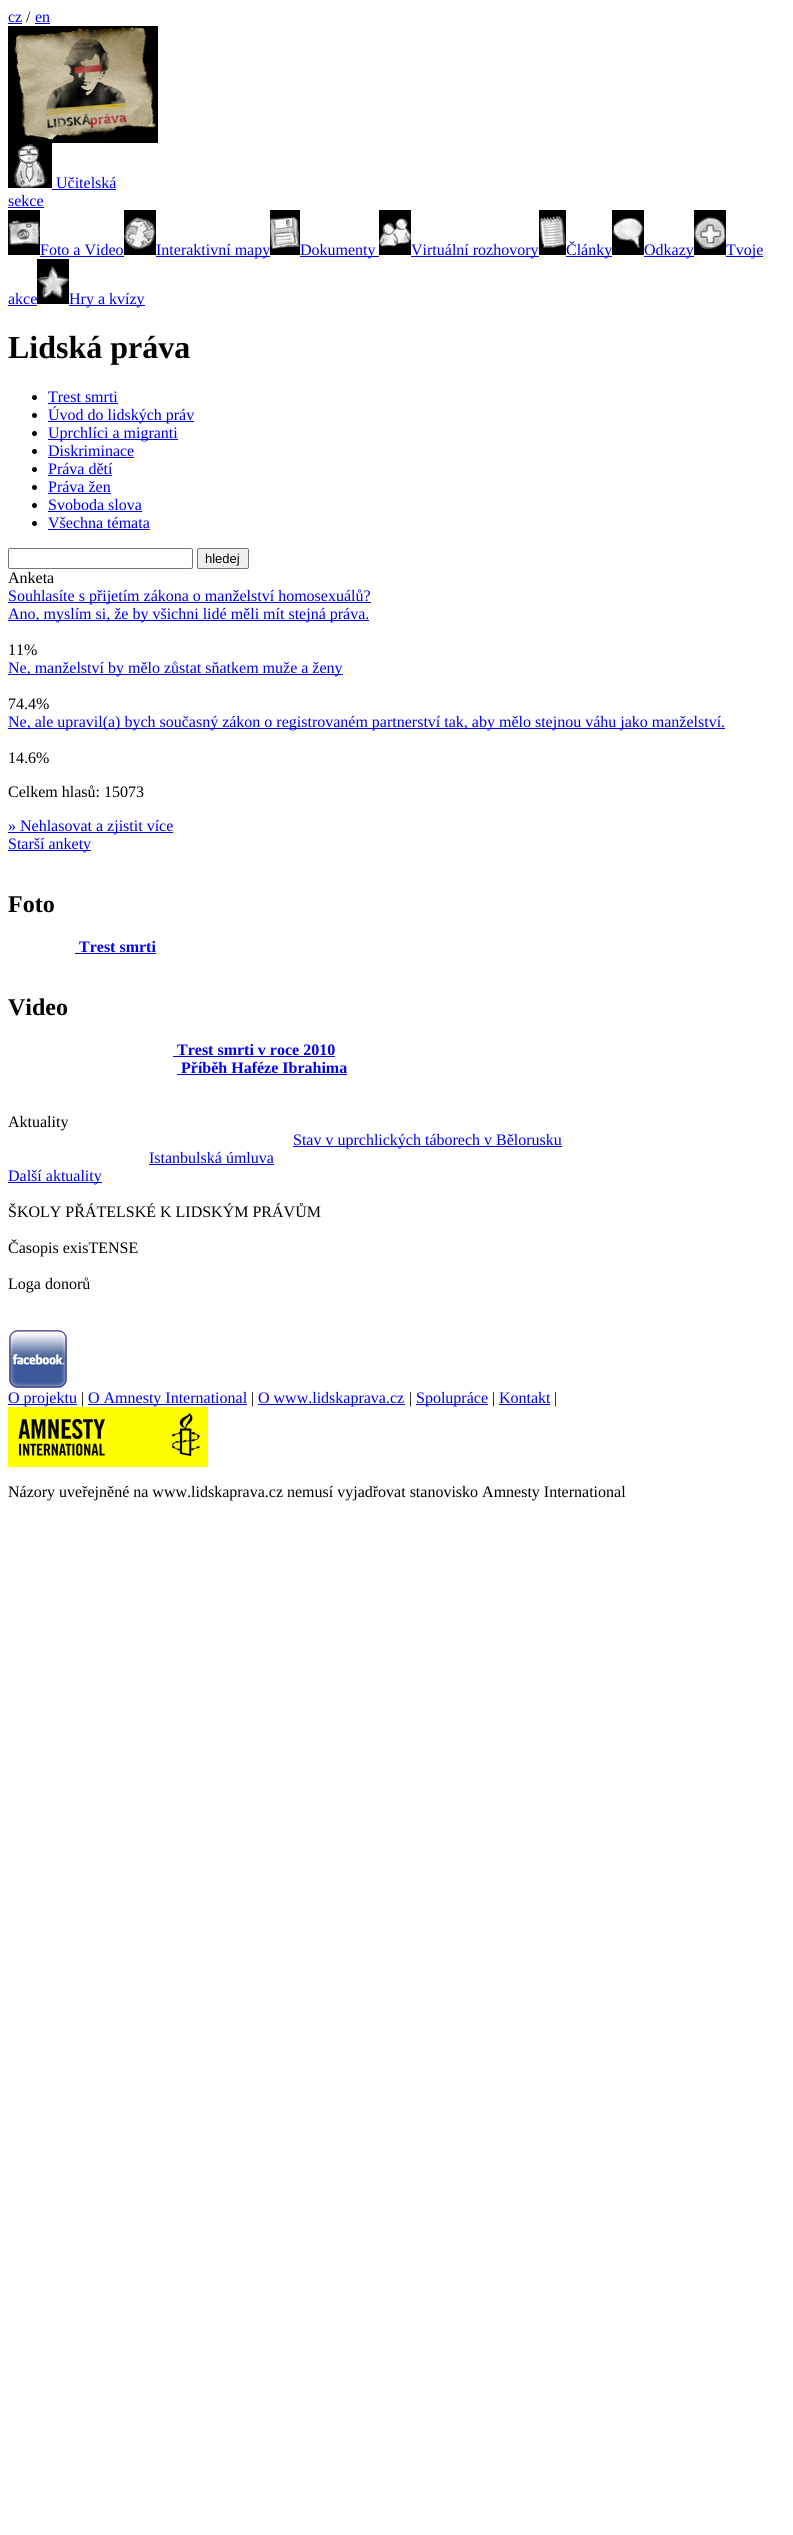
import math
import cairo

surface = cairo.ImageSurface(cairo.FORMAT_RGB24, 793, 2535)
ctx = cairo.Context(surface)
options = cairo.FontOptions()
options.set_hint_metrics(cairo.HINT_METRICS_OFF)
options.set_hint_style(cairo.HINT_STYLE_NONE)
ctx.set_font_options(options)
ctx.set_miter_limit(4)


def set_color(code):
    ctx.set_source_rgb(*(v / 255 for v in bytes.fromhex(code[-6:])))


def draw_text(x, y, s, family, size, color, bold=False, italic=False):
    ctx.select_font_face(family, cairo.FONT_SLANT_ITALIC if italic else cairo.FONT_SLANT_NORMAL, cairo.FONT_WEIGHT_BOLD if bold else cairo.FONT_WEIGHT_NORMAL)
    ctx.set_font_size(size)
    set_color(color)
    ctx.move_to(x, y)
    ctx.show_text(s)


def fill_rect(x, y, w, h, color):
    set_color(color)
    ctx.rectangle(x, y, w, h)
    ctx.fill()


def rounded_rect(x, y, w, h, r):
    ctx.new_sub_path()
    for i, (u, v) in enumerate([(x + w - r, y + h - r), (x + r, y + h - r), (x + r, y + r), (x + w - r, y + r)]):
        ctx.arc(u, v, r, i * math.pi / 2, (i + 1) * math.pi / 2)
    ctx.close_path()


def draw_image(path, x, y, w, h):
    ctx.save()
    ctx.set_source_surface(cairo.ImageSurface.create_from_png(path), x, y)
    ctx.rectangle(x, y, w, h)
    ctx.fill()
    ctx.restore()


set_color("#ffffff")
ctx.paint()
draw_text(8, 22, "cz", "Liberation Serif", 16, "#0000ee")
fill_rect(8, 23, 14, 1, "#0000ee")
draw_text(26, 22, "/", "Liberation Serif", 16, "#000000")
draw_text(35, 22, "en", "Liberation Serif", 16, "#0000ee")
fill_rect(35, 23, 15, 1, "#0000ee")
draw_image("assets/img1.png", 8, 26, 150, 117)
draw_image("assets/img2.png", 8, 143, 44, 45)
draw_text(56, 188, "Učitelská", "Liberation Serif", 16, "#0000ee")
fill_rect(52, 189, 64, 1, "#0000ee")
draw_text(8, 206, "sekce", "Liberation Serif", 16, "#0000ee")
fill_rect(8, 207, 36, 1, "#0000ee")
draw_image("assets/img3.png", 8, 210, 32, 45)
draw_text(40, 255, "Foto a Video", "Liberation Serif", 16, "#0000ee")
fill_rect(40, 256, 84, 1, "#0000ee")
draw_image("assets/img4.png", 124, 210, 32, 45)
fill_rect(156, 256, 114, 1, "#0000ee")
draw_text(156, 255, "Interaktivní mapy", "Liberation Serif", 16, "#0000ee")
draw_image("assets/img5.png", 270, 210, 30, 45)
fill_rect(300, 256, 79, 1, "#0000ee")
draw_text(300, 255, "Dokumenty", "Liberation Serif", 16, "#0000ee")
draw_image("assets/img6.png", 379, 210, 32, 45)
fill_rect(411, 256, 128, 1, "#0000ee")
draw_text(411, 255, "Virtuální rozhovory", "Liberation Serif", 16, "#0000ee")
draw_image("assets/img7.png", 539, 210, 27, 45)
fill_rect(566, 256, 46, 1, "#0000ee")
draw_text(566, 255, "Články", "Liberation Serif", 16, "#0000ee")
draw_image("assets/img8.png", 612, 210, 32, 45)
fill_rect(644, 256, 50, 1, "#0000ee")
draw_text(644, 255, "Odkazy", "Liberation Serif", 16, "#0000ee")
draw_image("assets/img9.png", 694, 210, 32, 45)
fill_rect(726, 256, 37, 1, "#0000ee")
draw_text(726, 255, "Tvoje", "Liberation Serif", 16, "#0000ee")
draw_text(8, 304, "akce", "Liberation Serif", 16, "#0000ee")
fill_rect(8, 305, 29, 1, "#0000ee")
draw_image("assets/img10.png", 37, 259, 32, 45)
fill_rect(69, 305, 76, 1, "#0000ee")
draw_text(69, 304, "Hry a kvízy", "Liberation Serif", 16, "#0000ee")
draw_text(8, 358, "Lidská práva", "Liberation Serif", 32, "#000000", bold=True)
ctx.new_path()
ctx.arc(34.5, 397.5, 2.5, 0, 2 * math.pi)
ctx.fill()
draw_text(48, 402, "Trest smrti", "Liberation Serif", 16, "#0000ee")
fill_rect(48, 403, 70, 1, "#0000ee")
set_color("#000000")
ctx.new_path()
ctx.arc(34.5, 415.5, 2.5, 0, 2 * math.pi)
ctx.fill()
fill_rect(48, 421, 146, 1, "#0000ee")
draw_text(48, 420, "Úvod do lidských práv", "Liberation Serif", 16, "#0000ee")
set_color("#000000")
ctx.new_path()
ctx.arc(34.5, 433.5, 2.5, 0, 2 * math.pi)
ctx.fill()
fill_rect(48, 439, 130, 1, "#0000ee")
draw_text(48, 438, "Uprchlíci a migranti", "Liberation Serif", 16, "#0000ee")
set_color("#000000")
ctx.new_path()
ctx.arc(34.5, 451.5, 2.5, 0, 2 * math.pi)
ctx.fill()
draw_text(48, 456, "Diskriminace", "Liberation Serif", 16, "#0000ee")
fill_rect(48, 457, 86, 1, "#0000ee")
set_color("#000000")
ctx.new_path()
ctx.arc(34.5, 469.5, 2.5, 0, 2 * math.pi)
ctx.fill()
draw_text(48, 474, "Práva dětí", "Liberation Serif", 16, "#0000ee")
fill_rect(48, 475, 64, 1, "#0000ee")
set_color("#000000")
ctx.new_path()
ctx.arc(34.5, 487.5, 2.5, 0, 2 * math.pi)
ctx.fill()
draw_text(48, 492, "Práva žen", "Liberation Serif", 16, "#0000ee")
fill_rect(48, 493, 63, 1, "#0000ee")
set_color("#000000")
ctx.new_path()
ctx.arc(34.5, 505.5, 2.5, 0, 2 * math.pi)
ctx.fill()
draw_text(48, 510, "Svoboda slova", "Liberation Serif", 16, "#0000ee")
fill_rect(48, 511, 94, 1, "#0000ee")
set_color("#000000")
ctx.new_path()
ctx.arc(34.5, 523.5, 2.5, 0, 2 * math.pi)
ctx.fill()
draw_text(48, 528, "Všechna témata", "Liberation Serif", 16, "#0000ee")
fill_rect(48, 529, 102, 1, "#0000ee")
rounded_rect(8.5, 548.5, 184, 20, 1.5)
set_color("#767676")
ctx.set_line_width(1)
ctx.stroke()
set_color("#efefef")
rounded_rect(197.5, 548.5, 51, 20, 1.5)
ctx.fill_preserve()
set_color("#767676")
ctx.stroke()
draw_text(205, 563, "hledej", "Liberation Sans", 13, "#000000")
draw_text(8, 583, "Anketa", "Liberation Serif", 16, "#000000")
fill_rect(8, 602, 363, 1, "#0000ee")
draw_text(8, 601, "Souhlasíte s přijetím zákona o manželství homosexuálů?", "Liberation Serif", 16, "#0000ee")
fill_rect(8, 620, 361, 1, "#0000ee")
draw_text(8, 619, "Ano, myslím si, že by všichni lidé měli mít stejná práva.", "Liberation Serif", 16, "#0000ee")
draw_text(8, 655, "11%", "Liberation Serif", 16, "#000000")
fill_rect(8, 674, 335, 1, "#0000ee")
draw_text(8, 673, "Ne, manželství by mělo zůstat sňatkem muže a ženy", "Liberation Serif", 16, "#0000ee")
draw_text(8, 709, "74.4%", "Liberation Serif", 16, "#000000")
fill_rect(8, 728, 717, 1, "#0000ee")
draw_text(8, 727, "Ne, ale upravil(a) bych současný zákon o registrovaném partnerství tak, aby mělo stejnou váhu jako manželství.", "Liberation Serif", 16, "#0000ee")
draw_text(8, 763, "14.6%", "Liberation Serif", 16, "#000000")
draw_text(8, 797, "Celkem hlasů: 15073", "Liberation Serif", 16, "#000000")
fill_rect(8, 832, 165, 1, "#0000ee")
draw_text(8, 831, "» Nehlasovat a zjistit více", "Liberation Serif", 16, "#0000ee")
fill_rect(8, 850, 83, 1, "#0000ee")
draw_text(8, 849, "Starší ankety", "Liberation Serif", 16, "#0000ee")
draw_text(8, 912, "Foto", "Liberation Serif", 24, "#000000", bold=True)
draw_text(79, 952, "Trest smrti", "Liberation Serif", 16, "#0000ee", bold=True)
fill_rect(75, 953, 81, 1, "#0000ee")
draw_text(8, 1015, "Video", "Liberation Serif", 24, "#000000", bold=True)
draw_text(177, 1055, "Trest smrti v roce 2010", "Liberation Serif", 16, "#0000ee", bold=True)
fill_rect(173, 1056, 162, 1, "#0000ee")
draw_text(181, 1073, "Příběh Haféze Ibrahima", "Liberation Serif", 16, "#0000ee", bold=True)
fill_rect(177, 1074, 170, 1, "#0000ee")
draw_text(8, 1127, "Aktuality", "Liberation Serif", 16, "#000000")
fill_rect(293, 1146, 269, 1, "#0000ee")
draw_text(293, 1145, "Stav v uprchlických táborech v Bělorusku", "Liberation Serif", 16, "#0000ee")
draw_text(149, 1163, "Istanbulská úmluva", "Liberation Serif", 16, "#0000ee")
fill_rect(149, 1164, 125, 1, "#0000ee")
fill_rect(8, 1182, 94, 1, "#0000ee")
draw_text(8, 1181, "Další aktuality", "Liberation Serif", 16, "#0000ee")
draw_text(8, 1217, "ŠKOLY PŘÁTELSKÉ K LIDSKÝM PRÁVŮM", "Liberation Serif", 16, "#000000")
draw_text(8, 1253, "Časopis exisTENSE", "Liberation Serif", 16, "#000000")
draw_text(8, 1289, "Loga donorů", "Liberation Serif", 16, "#000000")
draw_image("assets/img11.png", 9, 1330, 58, 58)
fill_rect(8, 1404, 69, 1, "#0000ee")
draw_text(8, 1403, "O projektu", "Liberation Serif", 16, "#0000ee")
draw_text(81, 1403, "|", "Liberation Serif", 16, "#000000")
fill_rect(88, 1404, 159, 1, "#0000ee")
draw_text(88, 1403, "O Amnesty International", "Liberation Serif", 16, "#0000ee")
draw_text(251, 1403, "|", "Liberation Serif", 16, "#000000")
fill_rect(258, 1404, 147, 1, "#0000ee")
draw_text(258, 1403, "O www.lidskaprava.cz", "Liberation Serif", 16, "#0000ee")
draw_text(409, 1403, "|", "Liberation Serif", 16, "#000000")
fill_rect(416, 1404, 72, 1, "#0000ee")
draw_text(416, 1403, "Spolupráce", "Liberation Serif", 16, "#0000ee")
draw_text(492, 1403, "|", "Liberation Serif", 16, "#000000")
draw_text(499, 1403, "Kontakt", "Liberation Serif", 16, "#0000ee")
fill_rect(499, 1404, 51, 1, "#0000ee")
draw_text(554, 1403, "|", "Liberation Serif", 16, "#000000")
draw_image("assets/img12.png", 8, 1407, 200, 60)
draw_text(8, 1497, "Názory uveřejněné na www.lidskaprava.cz nemusí vyjadřovat stanovisko Amnesty International", "Liberation Serif", 16, "#000000")
surface.write_to_png("output.png")
